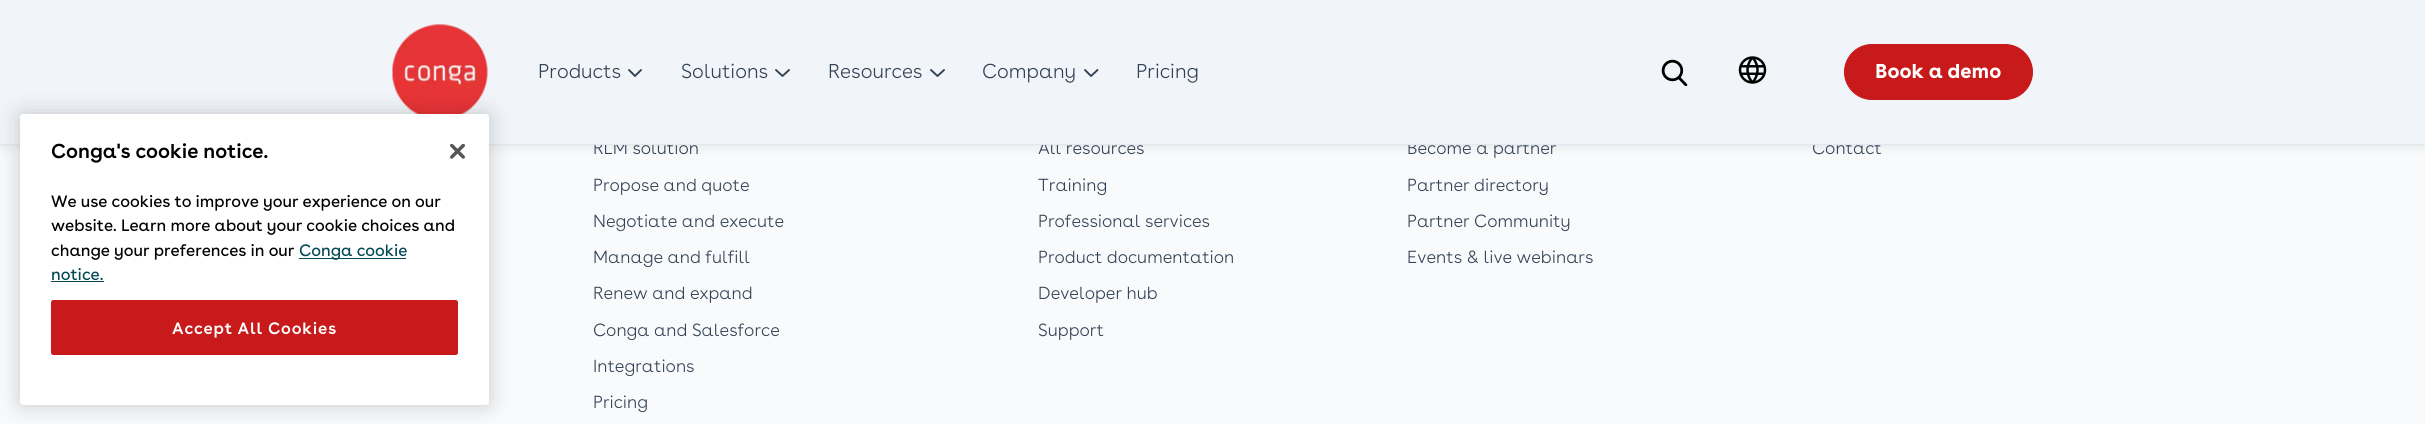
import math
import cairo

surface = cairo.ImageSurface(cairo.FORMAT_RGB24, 2425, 424)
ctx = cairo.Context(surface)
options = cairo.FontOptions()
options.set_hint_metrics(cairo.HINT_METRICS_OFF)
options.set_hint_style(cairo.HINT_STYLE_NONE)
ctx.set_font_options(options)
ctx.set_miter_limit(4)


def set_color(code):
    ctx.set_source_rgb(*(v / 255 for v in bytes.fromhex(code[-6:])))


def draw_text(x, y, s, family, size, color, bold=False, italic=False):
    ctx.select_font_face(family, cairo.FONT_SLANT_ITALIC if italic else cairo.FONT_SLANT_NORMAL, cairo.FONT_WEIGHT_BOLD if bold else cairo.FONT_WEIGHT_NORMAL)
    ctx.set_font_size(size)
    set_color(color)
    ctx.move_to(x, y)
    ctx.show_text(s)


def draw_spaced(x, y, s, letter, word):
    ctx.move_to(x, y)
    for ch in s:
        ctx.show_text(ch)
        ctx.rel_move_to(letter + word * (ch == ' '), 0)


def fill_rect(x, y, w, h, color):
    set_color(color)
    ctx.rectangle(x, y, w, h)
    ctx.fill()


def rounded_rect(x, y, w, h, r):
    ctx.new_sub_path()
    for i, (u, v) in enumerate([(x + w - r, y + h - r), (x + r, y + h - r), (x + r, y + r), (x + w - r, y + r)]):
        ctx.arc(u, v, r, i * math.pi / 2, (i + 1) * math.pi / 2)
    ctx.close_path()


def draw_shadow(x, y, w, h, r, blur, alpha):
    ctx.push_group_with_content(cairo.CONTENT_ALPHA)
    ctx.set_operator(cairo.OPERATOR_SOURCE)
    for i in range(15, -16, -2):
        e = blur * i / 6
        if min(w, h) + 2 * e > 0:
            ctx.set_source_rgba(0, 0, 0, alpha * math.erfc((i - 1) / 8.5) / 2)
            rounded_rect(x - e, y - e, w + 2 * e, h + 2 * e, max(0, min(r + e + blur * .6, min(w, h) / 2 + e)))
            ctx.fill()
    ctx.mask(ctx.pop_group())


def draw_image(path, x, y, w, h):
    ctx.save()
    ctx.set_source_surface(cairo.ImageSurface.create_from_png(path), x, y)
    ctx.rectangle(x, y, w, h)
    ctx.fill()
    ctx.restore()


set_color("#f8fafc")
ctx.paint()
set_color("#000000")
draw_shadow(0, 3, 2425, 145, 0, 5, 0.07)
draw_text(593, 154, "RLM solution", "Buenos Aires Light", 17.5, "#334155")
draw_text(1038, 154, "All resources", "Buenos Aires Light", 17.5, "#334155")
draw_text(1407, 154, "Become a partner", "Buenos Aires Light", 17.5, "#334155")
draw_text(1812, 154, "Contact", "Buenos Aires Light", 17.5, "#334155")
fill_rect(0, 0, 2425, 144, "#f1f5f9")
fill_rect(0, 144, 2425, 1, "#e2e8f0")
draw_image("assets/img2.png", 392, 24, 96, 90)
set_color("#000000")
draw_shadow(20, 114, 469, 291, 3, 11, 0.2)
set_color("#ffffff")
rounded_rect(20, 114, 469, 291, 3)
ctx.fill()
draw_text(51, 158, "Conga's cookie notice.", "Buenos Aires SemiBold", 20, "#000000", italic=True)
draw_text(51, 207, "We use cookies to improve your experience on our", "Buenos Aires", 16.4, "#000000")
draw_text(51, 231, "website. Learn more about your cookie choices and", "Buenos Aires", 16.4, "#000000")
draw_text(51, 256, "change your preferences in our", "Buenos Aires", 16.4, "#000000")
fill_rect(299, 258, 107, 1, "#024955")
draw_text(299, 256, "Conga cookie", "Buenos Aires", 16.4, "#024955")
draw_text(51, 280, "notice.", "Buenos Aires", 16.4, "#024955")
fill_rect(51, 281, 53, 1, "#024955")
draw_image("assets/img1.png", 450, 144, 15, 15)
set_color("#c81a1a")
rounded_rect(51.5, 300.5, 406, 54, 2)
ctx.fill_preserve()
ctx.set_line_width(1)
ctx.stroke()
ctx.select_font_face("Buenos Aires SemiBold", cairo.FONT_SLANT_ITALIC)
set_color("#ffffff")
draw_spaced(172, 334, "Accept All Cookies", 0.8, 0)
draw_text(538, 78, "Products", "Buenos Aires Light", 20, "#334155")
ctx.new_path()
ctx.move_to(641, 70)
ctx.line_to(635, 76)
ctx.line_to(629, 70)
ctx.set_line_width(1.9)
ctx.set_line_cap(cairo.LINE_CAP_ROUND)
ctx.set_line_join(cairo.LINE_JOIN_ROUND)
ctx.stroke()
draw_text(681, 78, "Solutions", "Buenos Aires Light", 20, "#334155")
ctx.new_path()
ctx.move_to(789, 70)
ctx.line_to(782.5, 76)
ctx.line_to(776, 70)
ctx.stroke()
draw_text(828, 78, "Resources", "Buenos Aires Light", 20, "#334155")
ctx.new_path()
ctx.move_to(944, 70)
ctx.line_to(937.5, 76)
ctx.line_to(931, 70)
ctx.stroke()
draw_text(982, 78, "Company", "Buenos Aires Light", 20, "#334155")
ctx.new_path()
ctx.move_to(1097.5, 70)
ctx.line_to(1091, 76)
ctx.line_to(1085, 70)
ctx.stroke()
draw_text(1136, 78, "Pricing", "Buenos Aires Light", 20, "#334155")
draw_image("assets/img3.png", 1661, 59, 27, 27)
draw_image("assets/img4.png", 1738, 56, 29, 28)
set_color("#c81a1a")
rounded_rect(1844.5, 44.5, 188, 55, 27.5)
ctx.fill_preserve()
ctx.set_line_width(1)
ctx.set_line_cap(cairo.LINE_CAP_BUTT)
ctx.set_line_join(cairo.LINE_JOIN_MITER)
ctx.stroke()
draw_text(1875, 78, "Book a demo", "Buenos Aires", 20, "#ffffff", bold=True)
draw_text(593, 191, "Propose and quote", "Buenos Aires Light", 17.5, "#334155")
draw_text(593, 227, "Negotiate and execute", "Buenos Aires Light", 17.5, "#334155")
draw_text(593, 263, "Manage and fulfill", "Buenos Aires Light", 17.5, "#334155")
draw_text(593, 299, "Renew and expand", "Buenos Aires Light", 17.5, "#334155")
draw_text(593, 336, "Conga and Salesforce", "Buenos Aires Light", 17.5, "#334155")
draw_text(593, 372, "Integrations", "Buenos Aires Light", 17.5, "#334155")
draw_text(593, 408, "Pricing", "Buenos Aires Light", 17.5, "#334155")
draw_text(1038, 191, "Training", "Buenos Aires Light", 17.5, "#334155")
draw_text(1038, 227, "Professional services", "Buenos Aires Light", 17.5, "#334155")
draw_text(1038, 263, "Product documentation", "Buenos Aires Light", 17.5, "#334155")
draw_text(1038, 299, "Developer hub", "Buenos Aires Light", 17.5, "#334155")
draw_text(1038, 336, "Support", "Buenos Aires Light", 17.5, "#334155")
draw_text(1407, 191, "Partner directory", "Buenos Aires Light", 17.5, "#334155")
draw_text(1407, 227, "Partner Community", "Buenos Aires Light", 17.5, "#334155")
draw_text(1407, 263, "Events & live webinars", "Buenos Aires Light", 17.5, "#334155")
surface.write_to_png("output.png")
